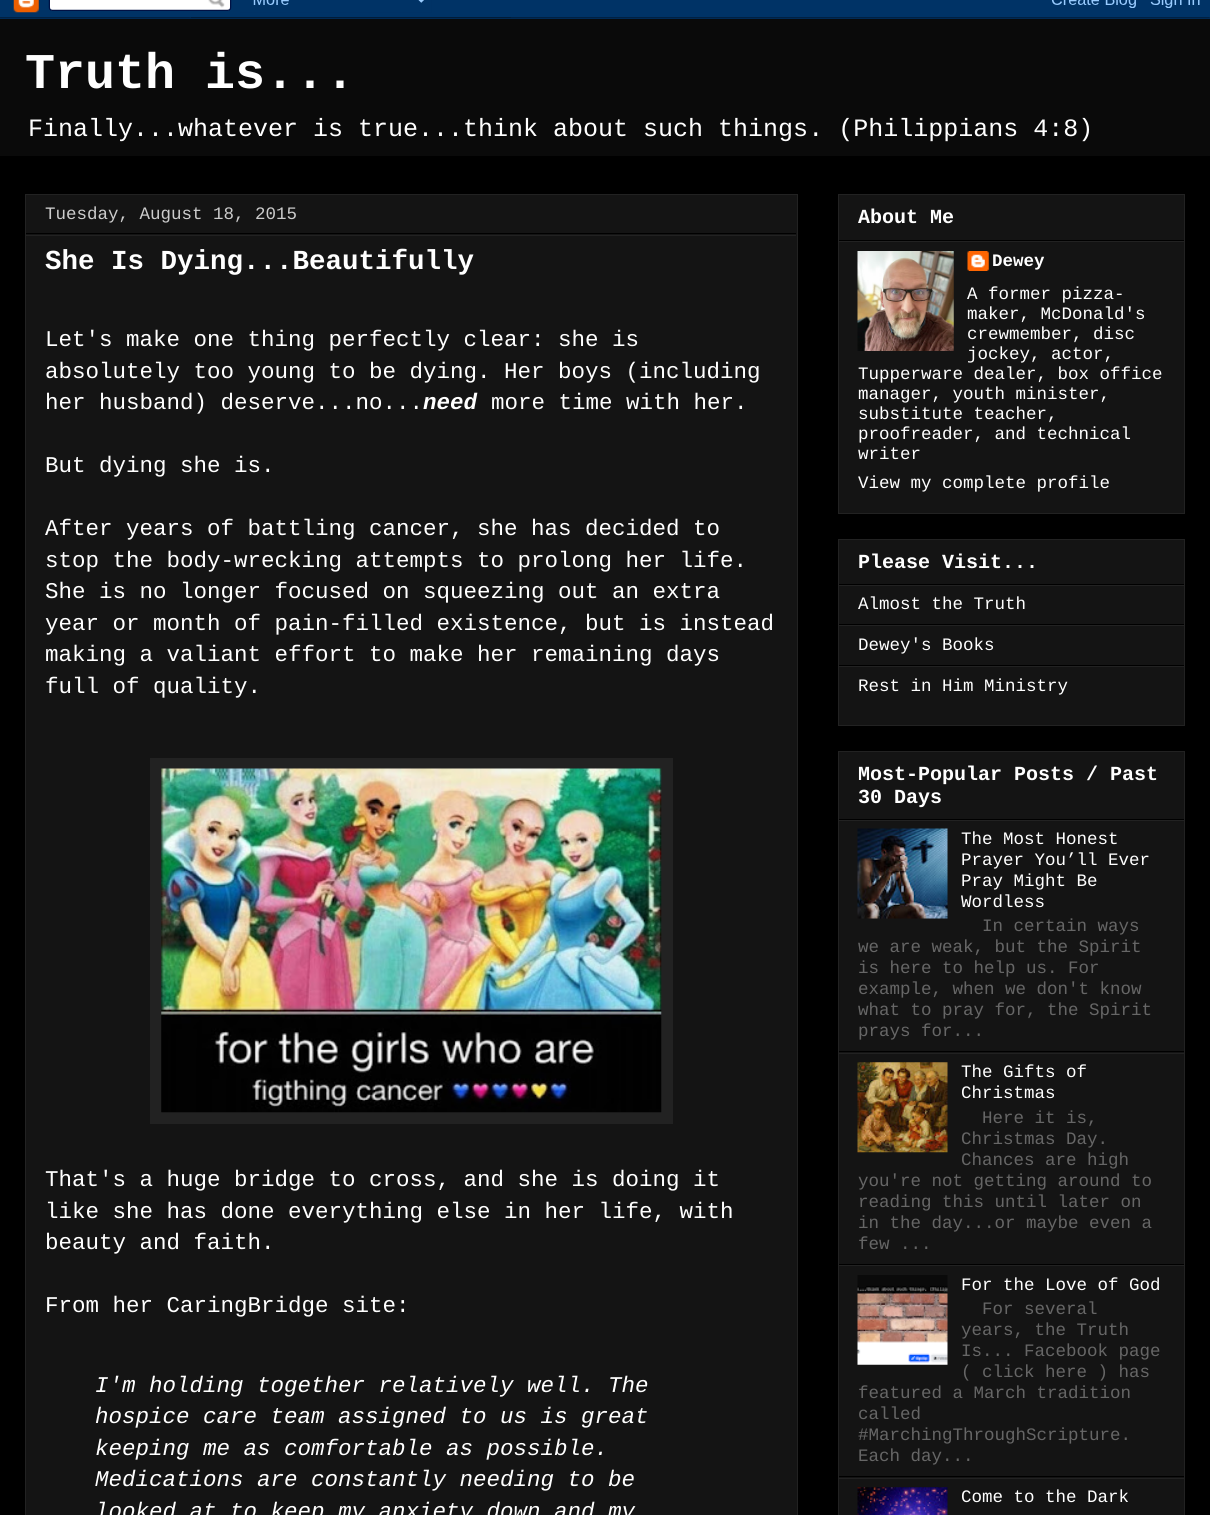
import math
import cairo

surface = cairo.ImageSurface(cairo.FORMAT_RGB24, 1210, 1515)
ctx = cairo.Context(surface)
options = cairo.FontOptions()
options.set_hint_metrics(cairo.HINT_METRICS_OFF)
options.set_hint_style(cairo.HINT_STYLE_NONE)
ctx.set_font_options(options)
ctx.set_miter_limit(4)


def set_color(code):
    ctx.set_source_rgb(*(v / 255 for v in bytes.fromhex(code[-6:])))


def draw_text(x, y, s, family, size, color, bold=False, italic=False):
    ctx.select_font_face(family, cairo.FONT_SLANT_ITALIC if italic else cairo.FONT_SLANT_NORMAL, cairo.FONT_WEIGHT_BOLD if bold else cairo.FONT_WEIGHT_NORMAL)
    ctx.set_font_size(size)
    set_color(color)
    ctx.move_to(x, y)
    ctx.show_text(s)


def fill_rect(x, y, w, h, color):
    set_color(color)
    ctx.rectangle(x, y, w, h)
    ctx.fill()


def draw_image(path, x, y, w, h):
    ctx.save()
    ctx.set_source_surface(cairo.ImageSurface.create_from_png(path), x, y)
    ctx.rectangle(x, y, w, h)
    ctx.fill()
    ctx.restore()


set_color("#000000")
ctx.paint()
draw_image("assets/img1.png", 0, 0, 1210, 19)
fill_rect(0, 19, 1210, 137, "#0a0a0a")
draw_text(25, 88, "Truth is...", "Liberation Mono", 50, "#ffffff", bold=True)
draw_text(28, 136, "Finally...whatever is true...think about such things. (Philippians 4:8)", "Liberation Mono", 25, "#ffffff")
set_color("#141414")
ctx.rectangle(25.5, 194.5, 772, 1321)
ctx.fill_preserve()
set_color("#222222")
ctx.set_line_width(1)
ctx.stroke()
fill_rect(26, 233, 770, 1, "#000000")
draw_text(45, 219, "Tuesday, August 18, 2015", "Liberation Mono", 17.5, "#cccccc")
fill_rect(26, 235, 770, 1, "#222222")
draw_text(45, 269, "She Is Dying...Beautifully", "Liberation Mono", 27.5, "#ffffff", bold=True)
draw_text(45, 346, "Let's make one thing perfectly clear: she is", "Liberation Mono", 22.5, "#ffffff")
draw_text(45, 378, "absolutely too young to be dying. Her boys (including", "Liberation Mono", 22.5, "#ffffff")
draw_text(45, 409, "her husband) deserve...no...", "Liberation Mono", 22.5, "#ffffff")
draw_text(423, 409, "need", "Liberation Mono", 22.5, "#ffffff", bold=True, italic=True)
draw_text(491, 409, "more time with her.", "Liberation Mono", 22.5, "#ffffff")
draw_text(45, 472, "But dying she is.", "Liberation Mono", 22.5, "#ffffff")
draw_text(45, 535, "After years of battling cancer, she has decided to", "Liberation Mono", 22.5, "#ffffff")
draw_text(45, 567, "stop the body-wrecking attempts to prolong her life.", "Liberation Mono", 22.5, "#ffffff")
draw_text(45, 598, "She is no longer focused on squeezing out an extra", "Liberation Mono", 22.5, "#ffffff")
draw_text(45, 630, "year or month of pain-filled existence, but is instead", "Liberation Mono", 22.5, "#ffffff")
draw_text(45, 661, "making a valiant effort to make her remaining days", "Liberation Mono", 22.5, "#ffffff")
draw_text(45, 693, "full of quality.", "Liberation Mono", 22.5, "#ffffff")
fill_rect(150, 758, 523, 366, "#222222")
draw_image("assets/img2.png", 161, 768, 501, 345)
draw_text(45, 1186, "That's a huge bridge to cross, and she is doing it", "Liberation Mono", 22.5, "#ffffff")
draw_text(45, 1218, "like she has done everything else in her life, with", "Liberation Mono", 22.5, "#ffffff")
draw_text(45, 1249, "beauty and faith.", "Liberation Mono", 22.5, "#ffffff")
draw_text(45, 1312, "From her CaringBridge site:", "Liberation Mono", 22.5, "#ffffff")
draw_text(95, 1392, "I'm holding together relatively well. The", "Liberation Mono", 22.5, "#ffffff", italic=True)
draw_text(95, 1423, "hospice care team assigned to us is great", "Liberation Mono", 22.5, "#ffffff", italic=True)
draw_text(95, 1455, "keeping me as comfortable as possible.", "Liberation Mono", 22.5, "#ffffff", italic=True)
draw_text(95, 1486, "Medications are constantly needing to be", "Liberation Mono", 22.5, "#ffffff", italic=True)
draw_text(95, 1518, "looked at to keep my anxiety down and my", "Liberation Mono", 22.5, "#ffffff", italic=True)
set_color("#141414")
ctx.rectangle(838.5, 194.5, 346, 319)
ctx.fill_preserve()
set_color("#222222")
ctx.stroke()
fill_rect(839, 240, 345, 1, "#000000")
draw_text(858, 223, "About Me", "Liberation Mono", 20, "#ffffff", bold=True)
fill_rect(839, 241, 345, 1, "#222222")
draw_image("assets/img3.png", 857, 251, 97, 100)
draw_image("assets/img4.png", 967, 251, 22, 20)
draw_text(992, 266, "Dewey", "Liberation Mono", 17.5, "#ffffff", bold=True)
draw_text(967, 299, "A former pizza-", "Liberation Mono", 17.5, "#ffffff")
draw_text(967, 319, "maker, McDonald's", "Liberation Mono", 17.5, "#ffffff")
draw_text(967, 339, "crewmember, disc", "Liberation Mono", 17.5, "#ffffff")
draw_text(967, 359, "jockey, actor,", "Liberation Mono", 17.5, "#ffffff")
draw_text(858, 379, "Tupperware dealer, box office", "Liberation Mono", 17.5, "#ffffff")
draw_text(858, 399, "manager, youth minister,", "Liberation Mono", 17.5, "#ffffff")
draw_text(858, 419, "substitute teacher,", "Liberation Mono", 17.5, "#ffffff")
draw_text(858, 439, "proofreader, and technical", "Liberation Mono", 17.5, "#ffffff")
draw_text(858, 459, "writer", "Liberation Mono", 17.5, "#ffffff")
draw_text(858, 488, "View my complete profile", "Liberation Mono", 17.5, "#ffffff")
set_color("#141414")
ctx.rectangle(838.5, 539.5, 346, 186)
ctx.fill_preserve()
set_color("#222222")
ctx.stroke()
fill_rect(839, 584, 345, 1, "#000000")
draw_text(858, 568, "Please Visit...", "Liberation Mono", 20, "#ffffff", bold=True)
fill_rect(839, 585, 345, 1, "#222222")
fill_rect(839, 624, 345, 1, "#000000")
draw_text(858, 609, "Almost the Truth", "Liberation Mono", 17.5, "#ffffff")
fill_rect(839, 625, 345, 1, "#222222")
fill_rect(839, 665, 345, 1, "#000000")
draw_text(858, 650, "Dewey's Books", "Liberation Mono", 17.5, "#ffffff")
fill_rect(839, 666, 345, 1, "#222222")
draw_text(858, 691, "Rest in Him Ministry", "Liberation Mono", 17.5, "#ffffff")
set_color("#141414")
ctx.rectangle(838.5, 751.5, 346, 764)
ctx.fill_preserve()
set_color("#222222")
ctx.stroke()
fill_rect(839, 819, 345, 1, "#000000")
draw_text(858, 780, "Most-Popular Posts / Past", "Liberation Mono", 20, "#ffffff", bold=True)
draw_text(858, 803, "30 Days", "Liberation Mono", 20, "#ffffff", bold=True)
fill_rect(839, 820, 345, 1, "#222222")
fill_rect(839, 1051, 345, 1, "#000000")
draw_image("assets/img5.png", 857, 828, 91, 91)
draw_text(961, 844, "The Most Honest", "Liberation Mono", 17.5, "#ffffff")
draw_text(961, 865, "Prayer You’ll Ever", "Liberation Mono", 17.5, "#ffffff")
draw_text(961, 886, "Pray Might Be", "Liberation Mono", 17.5, "#ffffff")
draw_text(961, 907, "Wordless", "Liberation Mono", 17.5, "#ffffff")
draw_text(982, 931, "In certain ways", "Liberation Mono", 17.5, "#666666")
draw_text(858, 952, "we are weak, but the Spirit", "Liberation Mono", 17.5, "#666666")
draw_text(858, 973, "is here to help us. For", "Liberation Mono", 17.5, "#666666")
draw_text(858, 994, "example, when we don't know", "Liberation Mono", 17.5, "#666666")
draw_text(858, 1015, "what to pray for, the Spirit", "Liberation Mono", 17.5, "#666666")
draw_text(858, 1036, "prays for...", "Liberation Mono", 17.5, "#666666")
fill_rect(839, 1053, 345, 1, "#222222")
fill_rect(839, 1264, 345, 1, "#000000")
draw_image("assets/img6.png", 857, 1062, 91, 91)
draw_text(961, 1077, "The Gifts of", "Liberation Mono", 17.5, "#ffffff")
draw_text(961, 1098, "Christmas", "Liberation Mono", 17.5, "#ffffff")
draw_text(982, 1123, "Here it is,", "Liberation Mono", 17.5, "#666666")
draw_text(961, 1144, "Christmas Day.", "Liberation Mono", 17.5, "#666666")
draw_text(961, 1165, "Chances are high", "Liberation Mono", 17.5, "#666666")
draw_text(858, 1186, "you're not getting around to", "Liberation Mono", 17.5, "#666666")
draw_text(858, 1207, "reading this until later on", "Liberation Mono", 17.5, "#666666")
draw_text(858, 1228, "in the day...or maybe even a", "Liberation Mono", 17.5, "#666666")
draw_text(858, 1249, "few ...", "Liberation Mono", 17.5, "#666666")
fill_rect(839, 1265, 345, 1, "#222222")
fill_rect(839, 1476, 345, 1, "#000000")
draw_image("assets/img7.png", 857, 1275, 91, 90)
draw_text(961, 1290, "For the Love of God", "Liberation Mono", 17.5, "#ffffff")
draw_text(982, 1314, "For several", "Liberation Mono", 17.5, "#666666")
draw_text(961, 1335, "years, the Truth", "Liberation Mono", 17.5, "#666666")
draw_text(961, 1356, "Is... Facebook page", "Liberation Mono", 17.5, "#666666")
draw_text(961, 1377, "( click here ) has", "Liberation Mono", 17.5, "#666666")
draw_text(858, 1398, "featured a March tradition", "Liberation Mono", 17.5, "#666666")
draw_text(858, 1419, "called", "Liberation Mono", 17.5, "#666666")
draw_text(858, 1440, "#MarchingThroughScripture.", "Liberation Mono", 17.5, "#666666")
draw_text(858, 1461, "Each day...", "Liberation Mono", 17.5, "#666666")
fill_rect(839, 1478, 345, 1, "#222222")
draw_image("assets/img8.png", 857, 1487, 91, 28)
draw_text(961, 1502, "Come to the Dark", "Liberation Mono", 17.5, "#ffffff")
surface.write_to_png("output.png")
